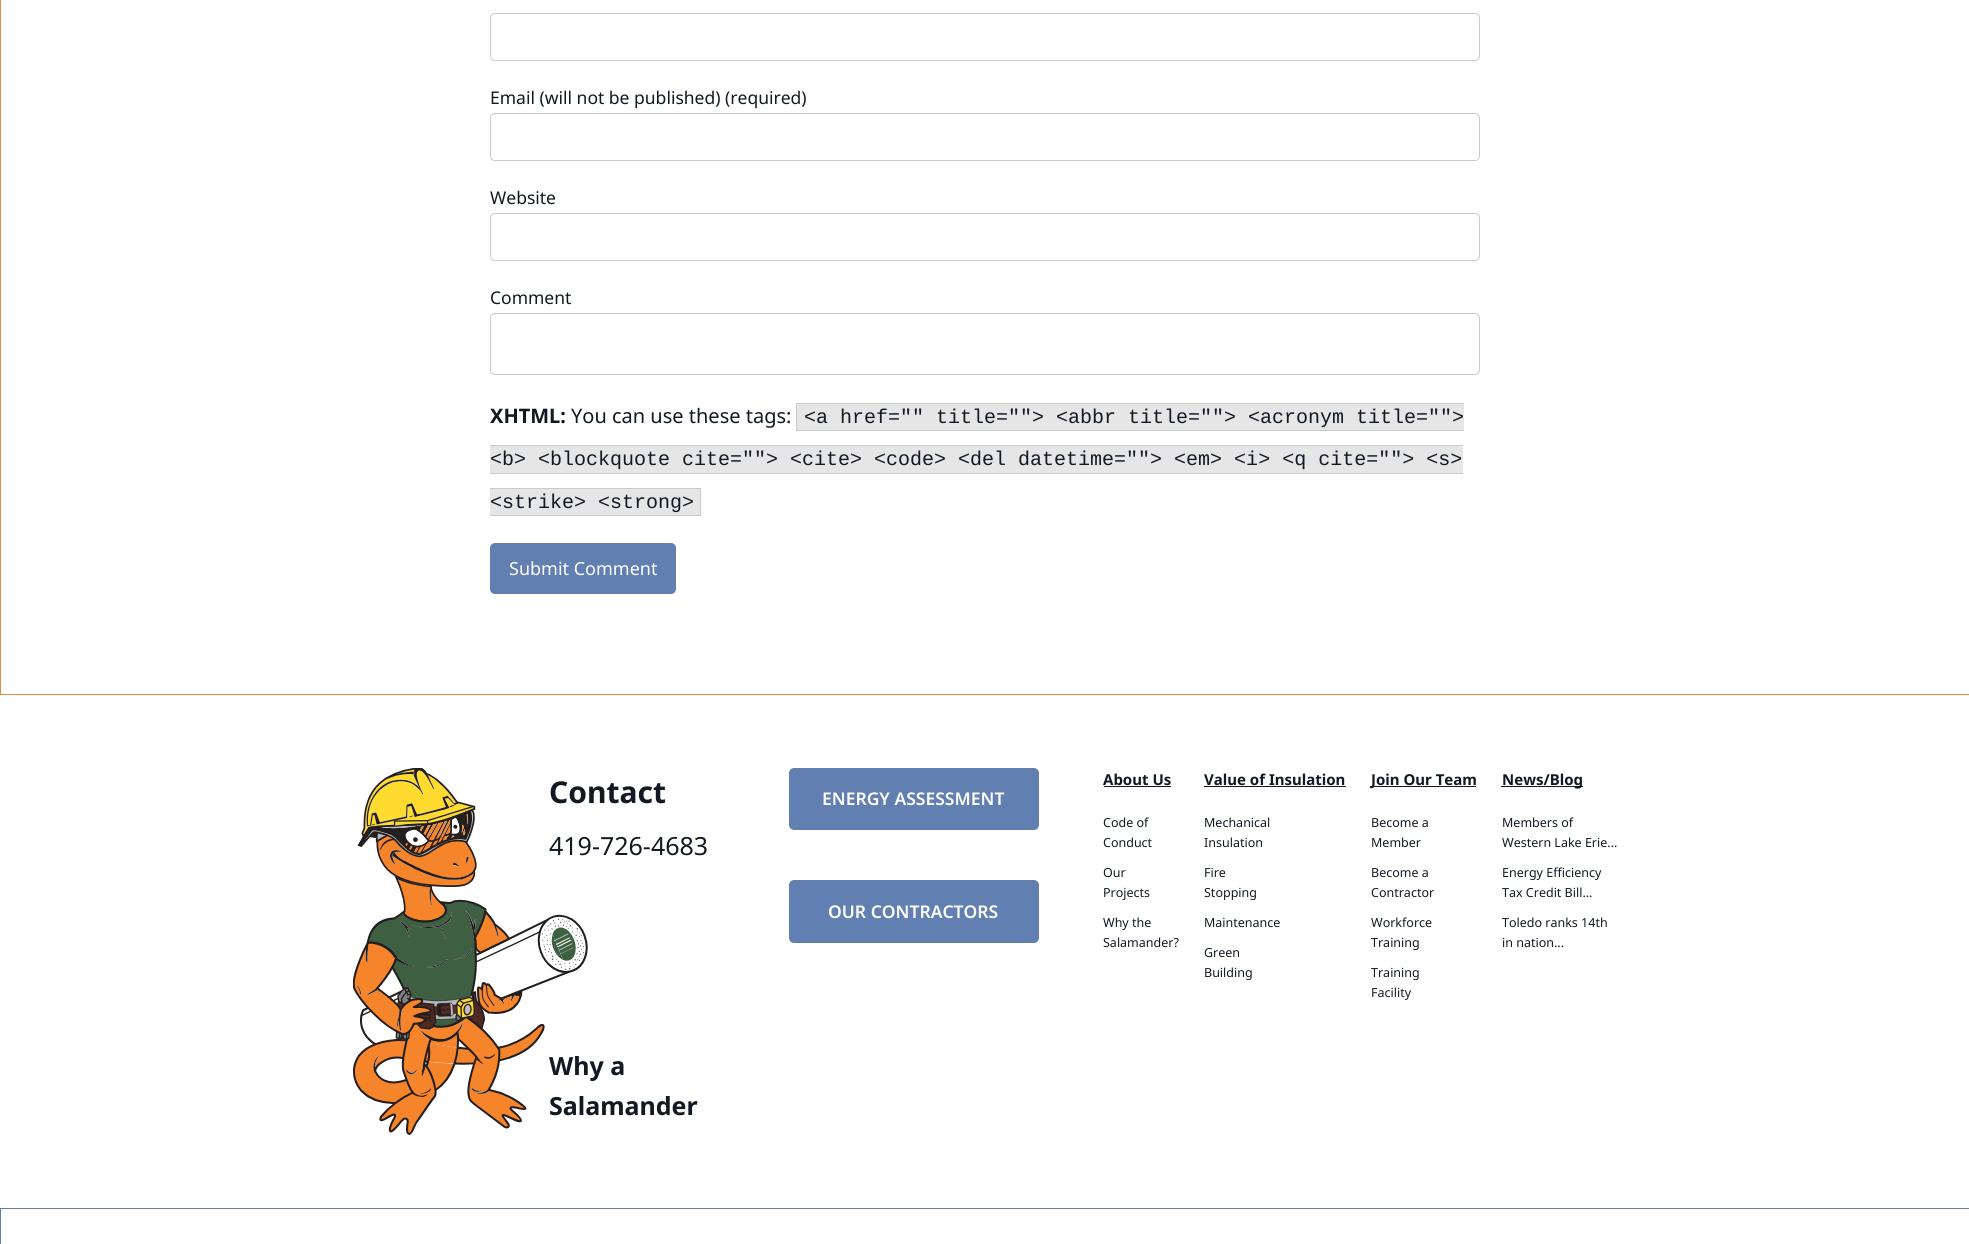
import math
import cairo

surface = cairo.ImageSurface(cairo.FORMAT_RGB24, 1969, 1244)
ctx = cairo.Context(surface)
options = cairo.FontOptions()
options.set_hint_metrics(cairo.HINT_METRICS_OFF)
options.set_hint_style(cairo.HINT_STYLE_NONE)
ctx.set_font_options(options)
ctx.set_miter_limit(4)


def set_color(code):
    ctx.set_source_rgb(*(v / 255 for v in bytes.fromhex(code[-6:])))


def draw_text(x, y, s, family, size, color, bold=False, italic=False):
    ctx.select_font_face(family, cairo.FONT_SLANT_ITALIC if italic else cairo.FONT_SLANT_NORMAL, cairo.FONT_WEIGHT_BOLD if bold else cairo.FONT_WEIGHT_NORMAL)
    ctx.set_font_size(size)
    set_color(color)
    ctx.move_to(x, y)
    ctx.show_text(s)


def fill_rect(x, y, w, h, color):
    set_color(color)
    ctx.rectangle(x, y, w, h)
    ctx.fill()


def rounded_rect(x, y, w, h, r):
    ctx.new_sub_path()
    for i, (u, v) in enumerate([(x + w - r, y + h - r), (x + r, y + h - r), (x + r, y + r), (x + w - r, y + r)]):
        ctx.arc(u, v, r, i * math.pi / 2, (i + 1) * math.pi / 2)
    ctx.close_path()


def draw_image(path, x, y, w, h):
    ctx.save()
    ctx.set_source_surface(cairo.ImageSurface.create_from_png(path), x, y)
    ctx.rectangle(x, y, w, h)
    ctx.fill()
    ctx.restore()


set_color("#ffffff")
ctx.paint()
ctx.rectangle(0.5, -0.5, 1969, 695)
set_color("#e68942")
ctx.set_line_width(1)
ctx.stroke()
rounded_rect(490.5, 13.5, 989, 47, 4.5)
set_color("#cacaca")
ctx.stroke()
draw_text(490, 104, "Email (will not be published) (required)", "Noto Sans", 17.5, "#131923")
rounded_rect(490.5, 113.5, 989, 47, 4.5)
set_color("#cacaca")
ctx.stroke()
draw_text(490, 204, "Website", "Noto Sans", 17.5, "#131923")
rounded_rect(490.5, 213.5, 989, 47, 4.5)
set_color("#cacaca")
ctx.stroke()
draw_text(490, 304, "Comment", "Noto Sans", 17.5, "#131923")
rounded_rect(490.5, 313.5, 989, 61, 4.5)
set_color("#cacaca")
ctx.stroke()
draw_text(490, 423, "XHTML:", "Noto Sans", 20, "#131923", bold=True)
draw_text(571, 423, "You can use these tags:", "Noto Sans", 20, "#131923")
fill_rect(797, 404, 667, 26, "#e6e6e6")
draw_text(804, 423, "<a href=\"\" title=\"\"> <abbr title=\"\"> <acronym title=\"\">", "Liberation Mono", 20, "#131923")
fill_rect(796, 403, 668, 1, "#cacaca")
fill_rect(796, 430, 668, 1, "#cacaca")
fill_rect(796, 403, 1, 28, "#cacaca")
fill_rect(490, 446, 973, 27, "#e6e6e6")
draw_text(490, 465, "<b> <blockquote cite=\"\"> <cite> <code> <del datetime=\"\"> <em> <i> <q cite=\"\"> <s>", "Liberation Mono", 20, "#131923")
fill_rect(490, 445, 973, 1, "#cacaca")
fill_rect(490, 473, 973, 1, "#cacaca")
fill_rect(490, 489, 210, 26, "#e6e6e6")
draw_text(490, 508, "<strike> <strong>", "Liberation Mono", 20, "#131923")
fill_rect(490, 488, 211, 1, "#cacaca")
fill_rect(700, 488, 1, 28, "#cacaca")
fill_rect(490, 515, 211, 1, "#cacaca")
set_color("#617fb0")
rounded_rect(490, 543, 186, 51, 5)
ctx.fill()
draw_text(509, 575, "Submit Comment", "Noto Sans", 18, "#fefefe")
draw_image("assets/img1.png", 353, 768, 235, 367)
draw_text(549, 803, "Contact", "Noto Sans", 30, "#131923", bold=True)
draw_text(549, 855, "419-726-4683", "Noto Sans", 25, "#131923")
draw_text(549, 1075, "Why a", "Noto Sans", 25, "#131923", bold=True)
draw_text(549, 1115, "Salamander", "Noto Sans", 25, "#131923", bold=True)
set_color("#617fb0")
rounded_rect(790.5, 769.5, 247, 59, 3.5)
ctx.fill_preserve()
ctx.set_line_width(3)
ctx.stroke()
draw_text(822, 805, "ENERGY ASSESSMENT", "Noto Sans SemiBold", 17.5, "#fefefe")
set_color("#617fb0")
rounded_rect(790.5, 881.5, 247, 60, 3.5)
ctx.fill_preserve()
ctx.stroke()
draw_text(828, 918, "OUR CONTRACTORS", "Noto Sans SemiBold", 17.5, "#fefefe")
draw_text(1103, 785, "About Us", "Noto Sans", 15, "#131923", bold=True)
fill_rect(1104, 786, 67, 1, "#131923")
draw_text(1103, 827, "Code of", "Noto Sans", 12.5, "#131923")
draw_text(1103, 847, "Conduct", "Noto Sans", 12.5, "#131923")
draw_text(1103, 877, "Our", "Noto Sans", 12.5, "#131923")
draw_text(1103, 897, "Projects", "Noto Sans", 12.5, "#131923")
draw_text(1103, 927, "Why the", "Noto Sans", 12.5, "#131923")
draw_text(1103, 947, "Salamander?", "Noto Sans", 12.5, "#131923")
draw_text(1204, 785, "Value of Insulation", "Noto Sans", 15, "#131923", bold=True)
fill_rect(1204, 786, 142, 1, "#131923")
draw_text(1204, 827, "Mechanical", "Noto Sans", 12.5, "#131923")
draw_text(1204, 847, "Insulation", "Noto Sans", 12.5, "#131923")
draw_text(1204, 877, "Fire", "Noto Sans", 12.5, "#131923")
draw_text(1204, 897, "Stopping", "Noto Sans", 12.5, "#131923")
draw_text(1204, 927, "Maintenance", "Noto Sans", 12.5, "#131923")
draw_text(1204, 957, "Green", "Noto Sans", 12.5, "#131923")
draw_text(1204, 977, "Building", "Noto Sans", 12.5, "#131923")
fill_rect(1371, 786, 105, 1, "#131923")
draw_text(1371, 785, "Join Our Team", "Noto Sans", 15, "#131923", bold=True)
draw_text(1371, 827, "Become a", "Noto Sans", 12.5, "#131923")
draw_text(1371, 847, "Member", "Noto Sans", 12.5, "#131923")
draw_text(1371, 877, "Become a", "Noto Sans", 12.5, "#131923")
draw_text(1371, 897, "Contractor", "Noto Sans", 12.5, "#131923")
draw_text(1371, 927, "Workforce", "Noto Sans", 12.5, "#131923")
draw_text(1371, 947, "Training", "Noto Sans", 12.5, "#131923")
draw_text(1371, 977, "Training", "Noto Sans", 12.5, "#131923")
draw_text(1371, 997, "Facility", "Noto Sans", 12.5, "#131923")
fill_rect(1501, 786, 82, 1, "#131923")
draw_text(1502, 785, "News/Blog", "Noto Sans", 15, "#131923", bold=True)
draw_text(1502, 827, "Members of", "Noto Sans", 12.5, "#131923")
draw_text(1502, 847, "Western Lake Erie...", "Noto Sans", 12.5, "#131923")
draw_text(1502, 877, "Energy Efficiency", "Noto Sans", 12.5, "#131923")
draw_text(1502, 897, "Tax Credit Bill...", "Noto Sans", 12.5, "#131923")
draw_text(1502, 927, "Toledo ranks 14th", "Noto Sans", 12.5, "#131923")
draw_text(1502, 947, "in nation...", "Noto Sans", 12.5, "#131923")
ctx.rectangle(0.5, 1208.5, 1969, 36)
set_color("#617fb0")
ctx.set_line_width(1)
ctx.stroke()
surface.write_to_png("output.png")
